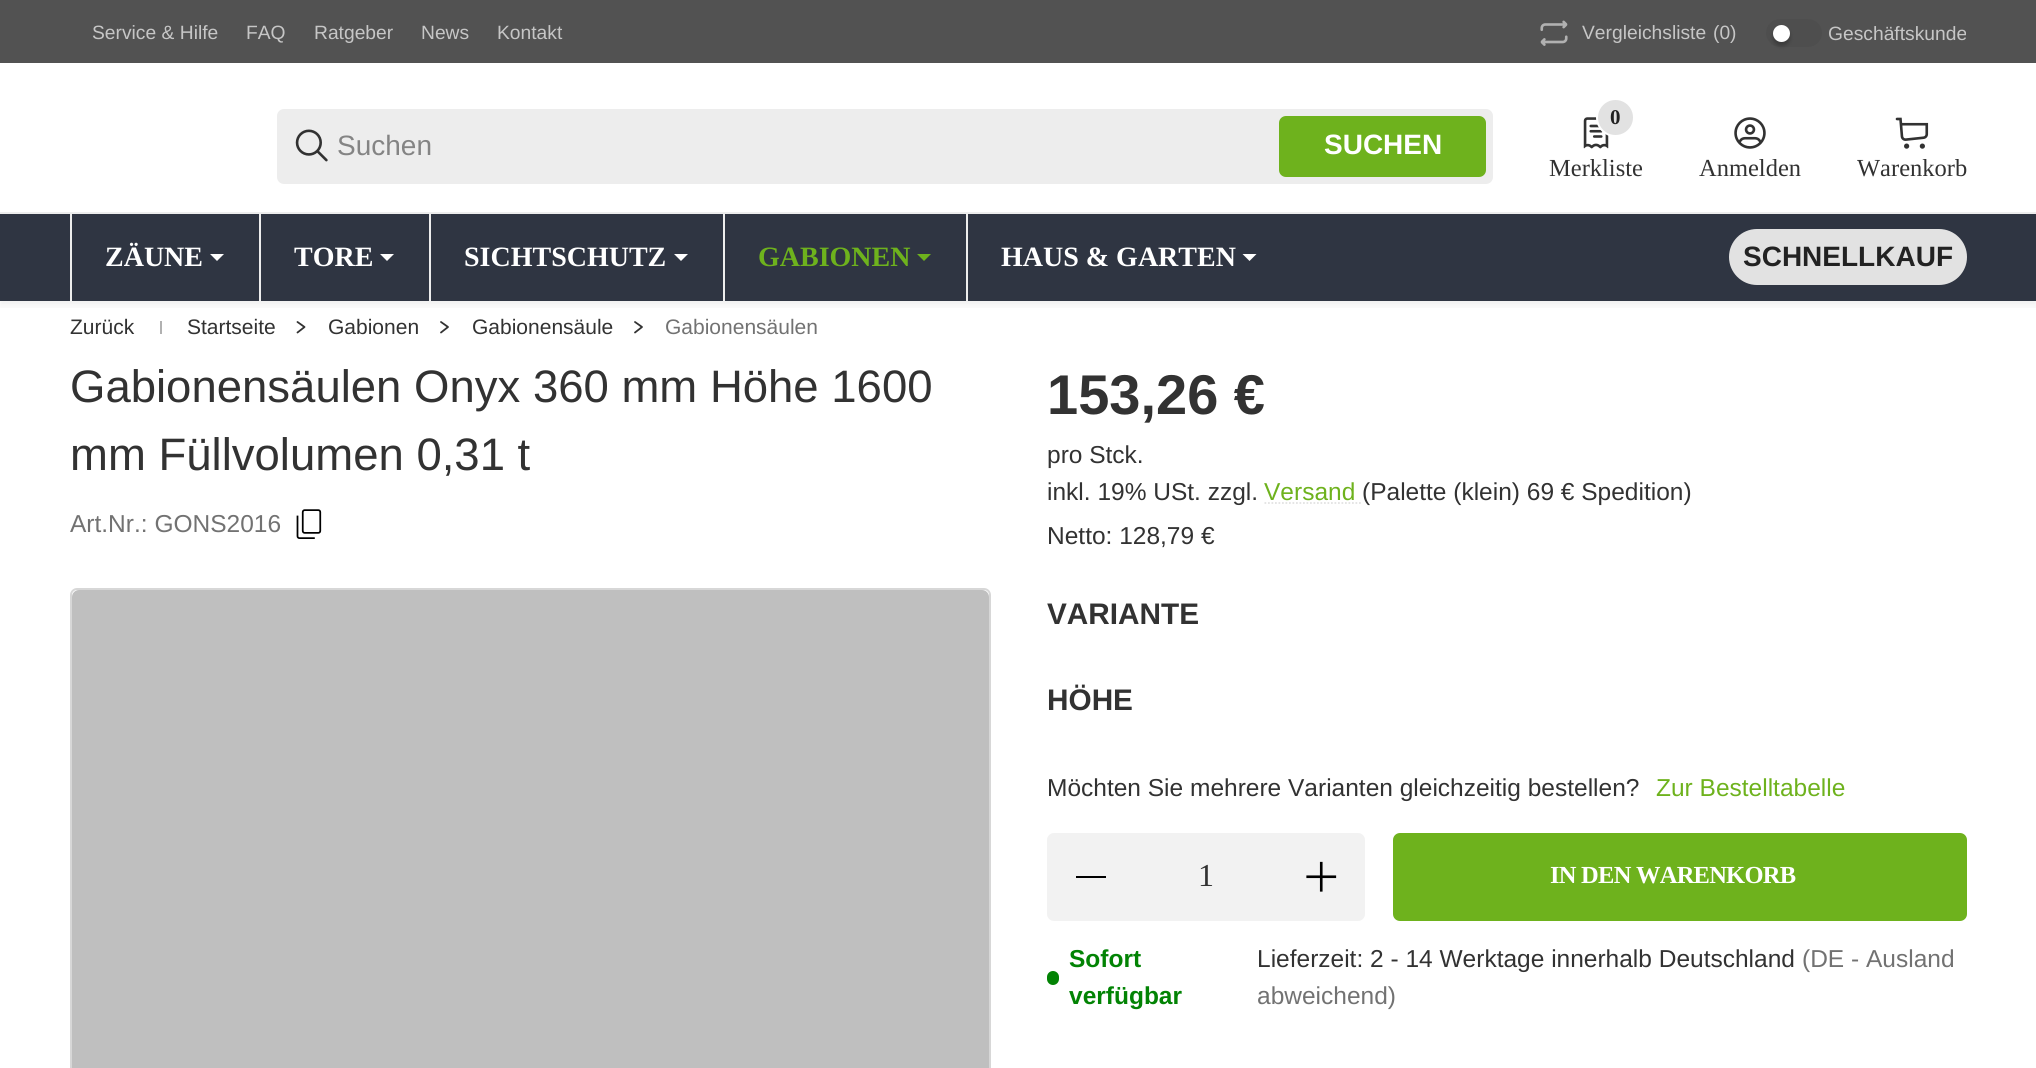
import math
import cairo

surface = cairo.ImageSurface(cairo.FORMAT_RGB24, 2036, 1068)
ctx = cairo.Context(surface)
options = cairo.FontOptions()
options.set_hint_metrics(cairo.HINT_METRICS_OFF)
options.set_hint_style(cairo.HINT_STYLE_NONE)
ctx.set_font_options(options)
ctx.set_miter_limit(4)


def set_color(code):
    ctx.set_source_rgb(*(v / 255 for v in bytes.fromhex(code[-6:])))


def draw_text(x, y, s, family, size, color, bold=False, italic=False):
    ctx.select_font_face(family, cairo.FONT_SLANT_ITALIC if italic else cairo.FONT_SLANT_NORMAL, cairo.FONT_WEIGHT_BOLD if bold else cairo.FONT_WEIGHT_NORMAL)
    ctx.set_font_size(size)
    set_color(color)
    ctx.move_to(x, y)
    ctx.show_text(s)


def draw_spaced(x, y, s, letter, word):
    ctx.move_to(x, y)
    for ch in s:
        ctx.show_text(ch)
        ctx.rel_move_to(letter + word * (ch == ' '), 0)


def fill_rect(x, y, w, h, color):
    set_color(color)
    ctx.rectangle(x, y, w, h)
    ctx.fill()


def rounded_rect(x, y, w, h, r):
    ctx.new_sub_path()
    for i, (u, v) in enumerate([(x + w - r, y + h - r), (x + r, y + h - r), (x + r, y + r), (x + w - r, y + r)]):
        ctx.arc(u, v, r, i * math.pi / 2, (i + 1) * math.pi / 2)
    ctx.close_path()


def draw_shadow(x, y, w, h, r, blur, alpha):
    ctx.push_group_with_content(cairo.CONTENT_ALPHA)
    ctx.set_operator(cairo.OPERATOR_SOURCE)
    for i in range(15, -16, -2):
        e = blur * i / 6
        if min(w, h) + 2 * e > 0:
            ctx.set_source_rgba(0, 0, 0, alpha * math.erfc((i - 1) / 8.5) / 2)
            rounded_rect(x - e, y - e, w + 2 * e, h + 2 * e, max(0, min(r + e + blur * .6, min(w, h) / 2 + e)))
            ctx.fill()
    ctx.mask(ctx.pop_group())


def draw_image(path, x, y, w, h):
    ctx.save()
    ctx.set_source_surface(cairo.ImageSurface.create_from_png(path), x, y)
    ctx.rectangle(x, y, w, h)
    ctx.fill()
    ctx.restore()


set_color("#ffffff")
ctx.paint()
fill_rect(0, 0, 2036, 63, "#525252")
draw_text(92, 39, "Service & Hilfe", "Liberation Sans", 19.25, "#c6c6c6")
draw_text(246, 39, "FAQ", "Liberation Sans", 19.25, "#c6c6c6")
draw_text(314, 39, "Ratgeber", "Liberation Sans", 19.25, "#c6c6c6")
draw_text(421, 39, "News", "Liberation Sans", 19.25, "#c6c6c6")
draw_text(497, 39, "Kontakt", "Liberation Sans", 19.25, "#c6c6c6")
draw_image("assets/img1.png", 1540, 20, 28, 26)
draw_text(1582, 39, "Vergleichsliste", "Liberation Sans", 19.25, "#c6c6c6")
draw_text(1713, 39, "(0)", "Liberation Sans", 19.25, "#c6c6c6")
set_color("#4e4e4e")
rounded_rect(1766, 19, 56, 28, 14)
ctx.fill()
set_color("#000000")
draw_shadow(1773, 28, 17, 18, 8.5, 2, 0.24)
set_color("#ffffff")
ctx.arc(1781.5, 33.5, 8.5, 0, 2 * math.pi)
ctx.fill()
draw_text(1828, 40, "Geschäftskunde", "Liberation Sans", 19.25, "#c6c6c6")
set_color("#ededed")
rounded_rect(277, 109, 1216, 75, 7)
ctx.fill()
draw_image("assets/img2.png", 295, 129, 33, 33)
draw_text(337, 155, "Suchen", "Liberation Sans", 28, "#848484")
set_color("#6eb21d")
rounded_rect(1280, 117, 205, 59, 6)
ctx.fill_preserve()
ctx.stroke()
draw_text(1324, 154, "SUCHEN", "Liberation Sans", 28, "#ffffff", bold=True)
draw_image("assets/img3.png", 1583, 117, 26, 32)
set_color("#e2e2e2")
ctx.arc(1615.5, 117.5, 18.5, 0, 2 * math.pi)
ctx.fill_preserve()
set_color("#ffffff")
ctx.stroke()
draw_text(1610, 124, "0", "Liberation Serif", 21, "#222222", bold=True)
draw_text(1549, 176, "Merkliste", "Liberation Serif", 24.5, "#323232")
draw_image("assets/img4.png", 1734, 117, 32, 32)
draw_text(1699, 176, "Anmelden", "Liberation Serif", 24.5, "#323232")
draw_image("assets/img5.png", 1895, 117, 34, 32)
draw_text(1857, 176, "Warenkorb", "Liberation Serif", 24.5, "#323232")
fill_rect(0, 214, 2036, 87, "#2f3542")
fill_rect(0, 212, 2036, 2, "#ededed")
fill_rect(70, 214, 2, 87, "#ededed")
draw_text(105, 266, "ZÄUNE", "Liberation Serif", 28, "#ffffff", bold=True)
ctx.new_path()
ctx.move_to(210, 254)
ctx.line_to(224, 254)
ctx.line_to(217, 261)
ctx.close_path()
ctx.fill()
fill_rect(259, 214, 2, 87, "#ededed")
draw_text(294, 266, "TORE", "Liberation Serif", 28, "#ffffff", bold=True)
ctx.new_path()
ctx.move_to(380, 254)
ctx.line_to(394, 254)
ctx.line_to(387, 261)
ctx.close_path()
ctx.fill()
fill_rect(429, 214, 2, 87, "#ededed")
draw_text(464, 266, "SICHTSCHUTZ", "Liberation Serif", 28, "#ffffff", bold=True)
ctx.new_path()
ctx.move_to(674, 254)
ctx.line_to(688, 254)
ctx.line_to(681, 261)
ctx.close_path()
ctx.fill()
fill_rect(723, 214, 2, 87, "#ededed")
draw_text(758, 266, "GABIONEN", "Liberation Serif", 28, "#6eb21d", bold=True)
ctx.new_path()
ctx.move_to(917, 254)
ctx.line_to(931, 254)
ctx.line_to(924, 261)
ctx.close_path()
ctx.fill()
fill_rect(966, 214, 2, 87, "#ededed")
draw_text(1001, 266, "HAUS & GARTEN", "Liberation Serif", 28, "#ffffff", bold=True)
ctx.new_path()
ctx.move_to(1242.5, 254)
ctx.line_to(1256.5, 254)
ctx.line_to(1249.5, 261)
ctx.close_path()
ctx.fill()
set_color("#e2e2e2")
rounded_rect(1729, 229, 238, 56, 28)
ctx.fill()
draw_text(1743, 266, "SCHNELLKAUF", "Liberation Sans", 28, "#222222", bold=True)
ctx.save()
ctx.rectangle(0, 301, 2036, 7)
ctx.clip()
set_color("#000000")
draw_shadow(0, 287, 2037, 18, 0, 5, 0.07)
ctx.restore()
draw_text(70, 334, "Zurück", "Liberation Sans", 21, "#323232")
fill_rect(160, 321, 2, 13, "#b1b1b1")
draw_text(187, 334, "Startseite", "Liberation Sans", 21, "#323232")
ctx.new_path()
ctx.move_to(297.5, 332.5)
ctx.line_to(304.5, 327)
ctx.line_to(297.5, 322)
ctx.set_line_width(1.8)
ctx.set_line_cap(cairo.LINE_CAP_ROUND)
ctx.set_line_join(cairo.LINE_JOIN_ROUND)
ctx.stroke()
draw_text(328, 334, "Gabionen", "Liberation Sans", 21, "#323232")
ctx.new_path()
ctx.move_to(441, 332.5)
ctx.line_to(448, 327)
ctx.line_to(441, 322)
ctx.stroke()
draw_text(472, 334, "Gabionensäule", "Liberation Sans", 21, "#323232")
ctx.new_path()
ctx.move_to(635, 332.5)
ctx.line_to(642, 327)
ctx.line_to(635, 322)
ctx.stroke()
draw_text(665, 334, "Gabionensäulen", "Liberation Sans", 21, "#727272")
draw_text(70, 402, "Gabionensäulen Onyx 360 mm Höhe 1600", "Liberation Sans", 45.5, "#323232")
draw_text(70, 470, "mm Füllvolumen 0,31 t", "Liberation Sans", 45.5, "#323232")
draw_text(70, 532, "Art.Nr.: GONS2016", "Liberation Sans", 24.5, "#727272")
draw_image("assets/img6.png", 296, 509, 26, 30)
rounded_rect(71, 589, 919, 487, 6)
set_color("#d7d7d7")
ctx.set_line_width(2)
ctx.set_line_cap(cairo.LINE_CAP_BUTT)
ctx.set_line_join(cairo.LINE_JOIN_MITER)
ctx.stroke()
set_color("#bfbfbf")
rounded_rect(72, 590, 917, 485, 7)
ctx.fill()
draw_text(1047, 414, "153,26 €", "Liberation Sans", 56, "#323232", bold=True)
draw_text(1047, 463, "pro Stck.", "Liberation Sans", 24.5, "#323232")
draw_text(1047, 500, "inkl. 19% USt. zzgl.", "Liberation Sans", 24.5, "#323232")
draw_text(1264, 500, "Versand", "Liberation Sans", 24.5, "#6eb21d")
ctx.new_path()
ctx.move_to(1264.5, 503)
ctx.line_to(1362.5, 503)
set_color("#e2e2e2")
ctx.set_line_width(1.8)
ctx.set_dash([1.75, 1.75])
ctx.stroke()
draw_text(1362, 500, "(Palette (klein) 69 € Spedition)", "Liberation Sans", 24.5, "#323232")
draw_text(1047, 544, "Netto: 128,79 €", "Liberation Sans", 24.5, "#323232")
draw_text(1047, 624, "VARIANTE", "Liberation Sans", 29.75, "#323232", bold=True)
draw_text(1047, 710, "HÖHE", "Liberation Sans", 29.75, "#323232", bold=True)
draw_text(1047, 796, "Möchten Sie mehrere Varianten gleichzeitig bestellen?", "Liberation Sans", 24.5, "#323232")
draw_text(1656, 796, "Zur Bestelltabelle", "Liberation Sans", 24.5, "#6eb21d")
set_color("#f2f2f2")
rounded_rect(1048, 834, 316, 86, 6)
ctx.fill_preserve()
ctx.set_line_width(2)
ctx.set_dash([])
ctx.stroke()
fill_rect(1076, 876, 30, 2, "#000000")
draw_text(1198, 886, "1", "Liberation Serif", 32, "#323232")
draw_image("assets/img7.png", 1306, 861, 31, 31)
set_color("#6eb21d")
rounded_rect(1394, 834, 572, 86, 6)
ctx.fill_preserve()
ctx.stroke()
ctx.select_font_face("Liberation Serif", cairo.FONT_SLANT_NORMAL, cairo.FONT_WEIGHT_BOLD)
ctx.set_font_size(24.5)
set_color("#ffffff")
draw_spaced(1550, 883, "IN DEN WARENKORB", -0.75, 0)
set_color("#028304")
rounded_rect(1047, 971, 12, 14, 6)
ctx.fill()
draw_text(1069, 967, "Sofort", "Liberation Sans", 24.5, "#028304", bold=True)
draw_text(1069, 1004, "verfügbar", "Liberation Sans", 24.5, "#028304", bold=True)
draw_text(1257, 967, "Lieferzeit: 2 - 14 Werktage innerhalb Deutschland", "Liberation Sans", 24.5, "#323232")
draw_text(1802, 967, "(DE - Ausland", "Liberation Sans", 24.5, "#727272")
draw_text(1257, 1004, "abweichend)", "Liberation Sans", 24.5, "#727272")
surface.write_to_png("output.png")
